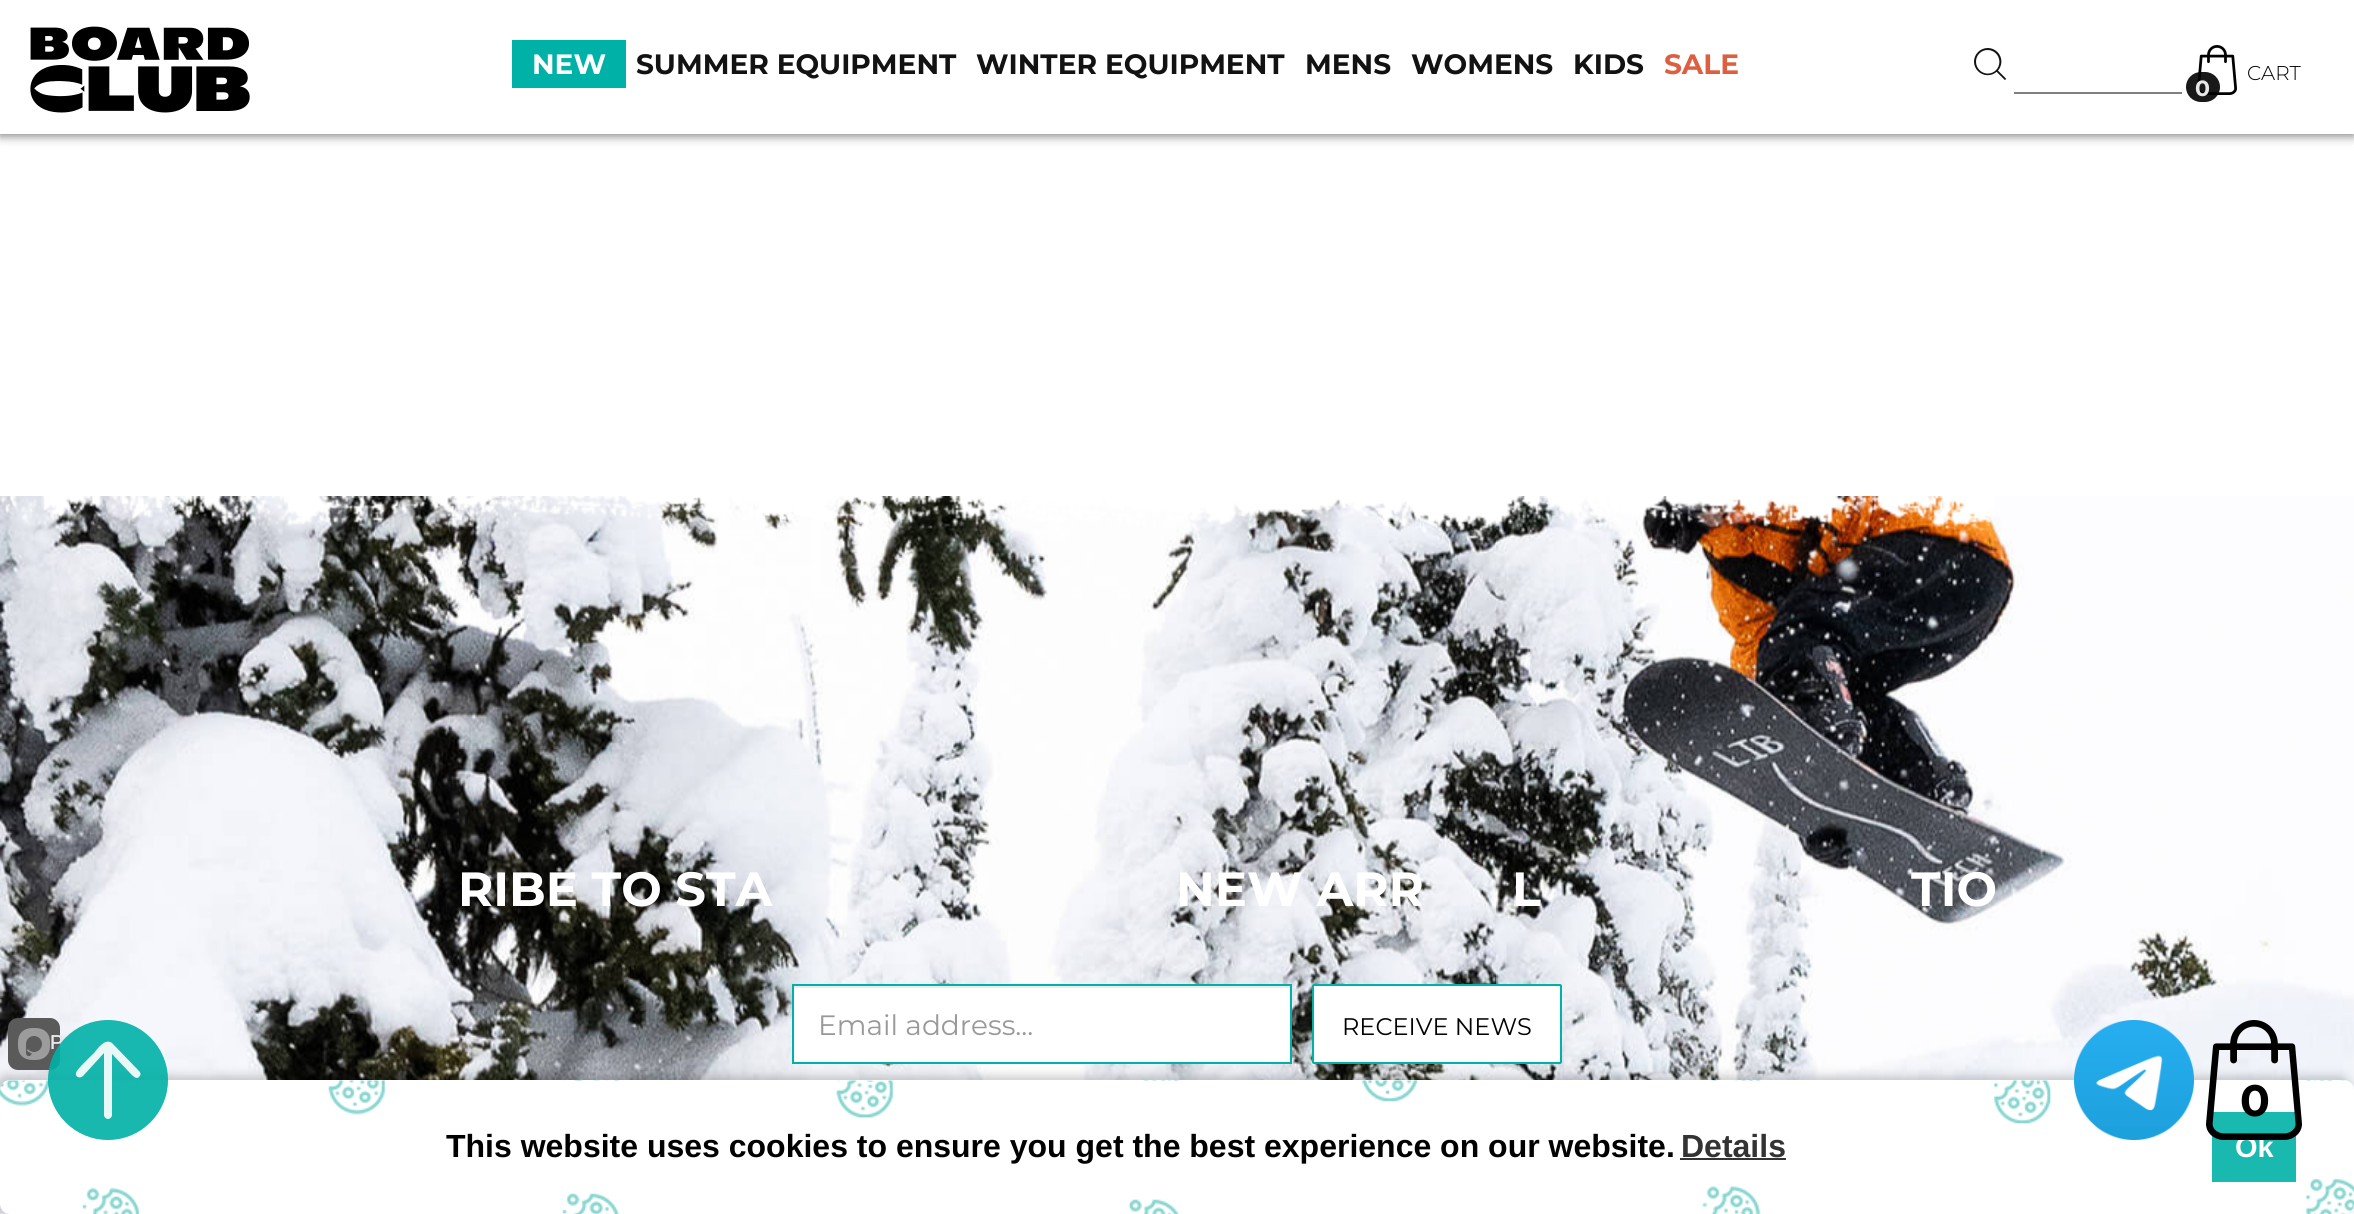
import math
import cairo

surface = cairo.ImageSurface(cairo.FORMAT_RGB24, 2354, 1214)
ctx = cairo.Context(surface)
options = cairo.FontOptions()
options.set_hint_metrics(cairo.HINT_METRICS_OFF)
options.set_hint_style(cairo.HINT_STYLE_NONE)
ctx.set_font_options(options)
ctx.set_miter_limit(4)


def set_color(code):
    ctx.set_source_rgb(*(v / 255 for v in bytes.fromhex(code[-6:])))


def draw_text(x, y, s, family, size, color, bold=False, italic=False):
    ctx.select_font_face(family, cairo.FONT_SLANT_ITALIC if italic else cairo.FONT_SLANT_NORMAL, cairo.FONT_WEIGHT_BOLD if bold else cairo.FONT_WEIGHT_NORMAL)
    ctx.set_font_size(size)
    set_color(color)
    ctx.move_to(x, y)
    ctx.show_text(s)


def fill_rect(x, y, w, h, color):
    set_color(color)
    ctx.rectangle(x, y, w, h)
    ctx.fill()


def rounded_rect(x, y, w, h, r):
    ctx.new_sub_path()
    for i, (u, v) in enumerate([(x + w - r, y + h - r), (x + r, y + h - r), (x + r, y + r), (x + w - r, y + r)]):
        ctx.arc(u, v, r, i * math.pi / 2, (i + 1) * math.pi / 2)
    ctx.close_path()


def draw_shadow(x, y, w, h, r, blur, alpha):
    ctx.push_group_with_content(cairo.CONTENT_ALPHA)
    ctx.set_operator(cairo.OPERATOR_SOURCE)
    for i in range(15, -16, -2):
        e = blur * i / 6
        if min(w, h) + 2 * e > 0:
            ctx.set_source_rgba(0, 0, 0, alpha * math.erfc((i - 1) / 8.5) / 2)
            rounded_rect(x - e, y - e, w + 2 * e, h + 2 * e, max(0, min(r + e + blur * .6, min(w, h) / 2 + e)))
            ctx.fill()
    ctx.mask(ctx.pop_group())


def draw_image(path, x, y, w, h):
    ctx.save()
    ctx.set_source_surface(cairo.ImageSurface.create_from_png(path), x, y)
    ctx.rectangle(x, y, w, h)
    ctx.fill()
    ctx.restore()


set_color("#ffffff")
ctx.paint()
set_color("#000000")
draw_shadow(0, 2, 2354, 134, 0, 5, 0.5)
fill_rect(0, 0, 2354, 134, "#ffffff")
draw_image("assets/img1.png", 30, 26, 220, 87)
fill_rect(512, 40, 114, 48, "#00b1a7")
draw_text(532, 74, "NEW", "Montserrat", 28, "#ffffff", bold=True)
draw_text(636, 74, "SUMMER EQUIPMENT", "Montserrat", 28, "#121212", bold=True)
draw_text(976, 74, "WINTER EQUIPMENT", "Montserrat", 28, "#121212", bold=True)
draw_text(1305, 74, "MENS", "Montserrat", 28, "#121212", bold=True)
draw_text(1411, 74, "WOMENS", "Montserrat", 28, "#121212", bold=True)
draw_text(1573, 74, "KIDS", "Montserrat", 28, "#121212", bold=True)
draw_text(1664, 74, "SALE", "Montserrat", 28, "#dd5f42", bold=True)
draw_image("assets/img2.png", 1974, 48, 32, 32)
fill_rect(2014, 92, 168, 2, "#808080")
draw_image("assets/img3.png", 2197, 45, 40, 50)
draw_text(2247, 80, "CART", "Montserrat Light", 20, "#000000")
ctx.set_source_rgba(0, 0, 0, 0.9)
rounded_rect(2186, 72, 34, 30, 15)
ctx.fill()
draw_text(2195, 96, "0", "Montserrat", 22, "#e7e7e7", bold=True)
draw_image("assets/img4.png", 0, 496, 2354, 718)
draw_image("assets/img5.png", 0, 496, 1994, 45)
draw_text(458, 906, "RIBE TO STA", "Montserrat", 48, "#ffffff", bold=True)
draw_text(1176, 906, "NEW ARR", "Montserrat", 48, "#ffffff", bold=True)
draw_text(1512, 906, "L", "Montserrat", 48, "#ffffff", bold=True)
draw_text(1911, 906, "TIO", "Montserrat", 48, "#ffffff", bold=True)
fill_rect(794, 988, 496, 74, "#ffffff")
fill_rect(794, 986, 496, 2, "#ececec")
ctx.rectangle(793, 985, 498, 78)
set_color("#00b1a7")
ctx.stroke()
draw_text(818, 1035, "Email address...", "Montserrat", 28, "#999999")
set_color("#ffffff")
rounded_rect(1313, 985, 248, 78, 1)
ctx.fill_preserve()
set_color("#00b1a7")
ctx.stroke()
draw_text(1342, 1035, "RECEIVE NEWS", "Montserrat", 24, "#000000")
set_color("#000000")
draw_shadow(-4, 1076, 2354, 134, 10, 5, 0.2)
set_color("#ffffff")
rounded_rect(0, 1080, 2354, 134, 10)
ctx.fill()
draw_image("assets/img8.png", 0, 1080, 2354, 134)
set_color("#5a5a5a")
rounded_rect(8, 1018, 52, 52, 10)
ctx.fill()
draw_image("assets/img9.png", 18, 1028, 32, 32)
draw_text(50, 1049, "P", "Liberation Sans", 20, "#e1e2e6")
draw_text(50, 1049, "P", "Liberation Sans", 20, "#e8e9ee")
ctx.set_source_rgba(0, 0.694, 0.655, 0.9)
ctx.new_path()
ctx.arc(108, 1080, 60, 0, 2 * math.pi)
ctx.fill()
ctx.set_source_rgba(1, 1, 1, 0.9)
ctx.new_path()
ctx.move_to(139, 1071)
ctx.line_to(112, 1043)
ctx.curve_to(105, 1038, 98, 1048, 94, 1053)
ctx.curve_to(91, 1056, 76, 1070, 76, 1073)
ctx.curve_to(75, 1077, 80, 1079, 83, 1076)
ctx.line_to(104, 1053)
ctx.line_to(104, 1115)
ctx.curve_to(104, 1117, 106, 1119, 108, 1119)
ctx.curve_to(110, 1119, 112, 1117, 112, 1115)
ctx.line_to(112, 1054)
ctx.line_to(130, 1073)
ctx.curve_to(132, 1075, 136, 1080, 139, 1077)
ctx.curve_to(141, 1075, 141, 1073, 139, 1071)
ctx.close_path()
ctx.fill()
draw_image("assets/img6.png", 2074, 1020, 120, 120)
fill_rect(2212, 1112, 84, 70, "#1ab9b0")
draw_text(2235, 1157, "Ok", "Liberation Sans", 29, "#ffffff", bold=True)
draw_image("assets/img7.png", 2206, 1020, 96, 120)
draw_text(2240, 1116, "0", "Montserrat", 44, "#000000", bold=True)
draw_text(446, 1157, "This website uses cookies to ensure you get the best experience on our website.", "Liberation Sans", 32, "#000000", bold=True)
draw_text(1681, 1157, "Details", "Liberation Sans", 32, "#333333", bold=True)
fill_rect(1680, 1158, 106, 2, "#333333")
surface.write_to_png("output.png")
